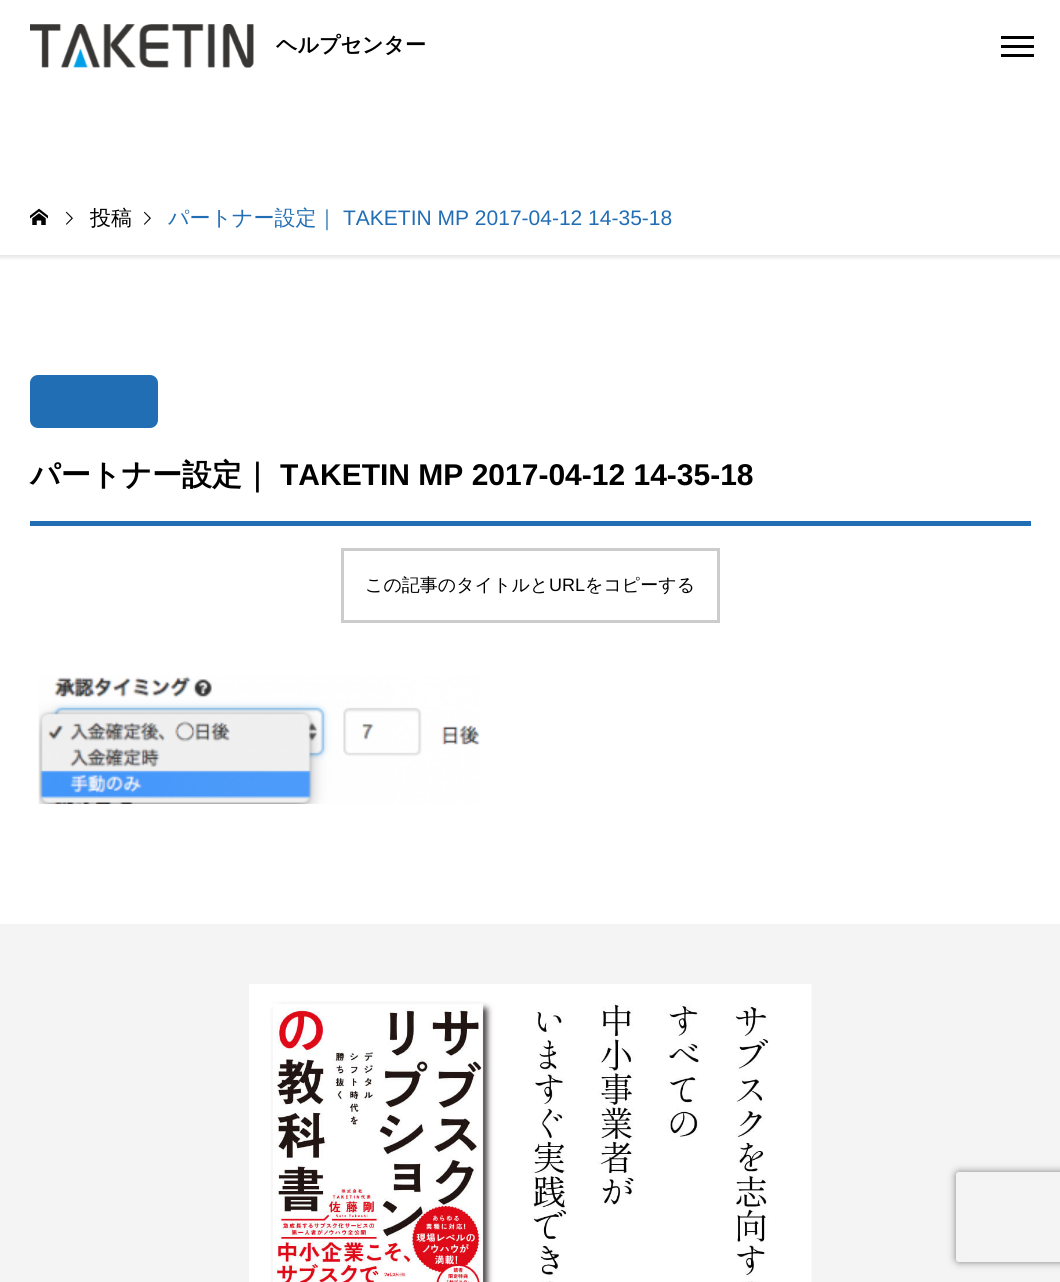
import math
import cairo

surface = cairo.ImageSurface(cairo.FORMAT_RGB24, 1060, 1282)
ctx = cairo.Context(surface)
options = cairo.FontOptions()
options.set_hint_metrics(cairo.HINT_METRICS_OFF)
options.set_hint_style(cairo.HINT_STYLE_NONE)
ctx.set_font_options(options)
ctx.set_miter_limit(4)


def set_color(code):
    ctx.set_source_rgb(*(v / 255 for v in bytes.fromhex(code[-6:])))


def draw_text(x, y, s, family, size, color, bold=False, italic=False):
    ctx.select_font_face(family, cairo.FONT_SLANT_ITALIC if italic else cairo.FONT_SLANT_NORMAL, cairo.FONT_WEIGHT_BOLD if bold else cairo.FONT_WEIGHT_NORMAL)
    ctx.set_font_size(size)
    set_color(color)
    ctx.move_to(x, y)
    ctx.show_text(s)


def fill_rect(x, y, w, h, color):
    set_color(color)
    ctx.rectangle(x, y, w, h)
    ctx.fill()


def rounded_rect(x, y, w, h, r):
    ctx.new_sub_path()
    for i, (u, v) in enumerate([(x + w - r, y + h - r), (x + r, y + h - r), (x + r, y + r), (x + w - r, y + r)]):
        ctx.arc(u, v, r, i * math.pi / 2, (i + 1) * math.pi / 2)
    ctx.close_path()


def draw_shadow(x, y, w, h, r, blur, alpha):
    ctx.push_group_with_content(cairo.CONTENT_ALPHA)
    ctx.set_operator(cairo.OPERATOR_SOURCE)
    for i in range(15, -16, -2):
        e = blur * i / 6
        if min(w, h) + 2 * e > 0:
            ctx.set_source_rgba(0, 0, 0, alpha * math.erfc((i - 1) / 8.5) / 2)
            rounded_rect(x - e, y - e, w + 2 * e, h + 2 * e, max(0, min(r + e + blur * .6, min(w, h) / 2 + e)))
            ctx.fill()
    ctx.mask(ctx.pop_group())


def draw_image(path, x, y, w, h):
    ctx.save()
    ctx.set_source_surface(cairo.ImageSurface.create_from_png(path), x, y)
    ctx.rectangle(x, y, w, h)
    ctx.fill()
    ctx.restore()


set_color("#ffffff")
ctx.paint()
draw_image("assets/img1.png", 30, 24, 224, 44)
draw_text(276, 52, "ヘルプセンター", "WenQuanYi Zen Hei", 21, "#000000", bold=True)
fill_rect(1001, 36, 33, 3, "#000000")
fill_rect(1001, 45, 33, 3, "#000000")
fill_rect(1001, 54, 33, 3, "#000000")
draw_image("assets/img2.png", 30, 208, 18, 17)
draw_image("assets/img3.png", 66, 211, 7, 14)
draw_text(90, 225, "投稿", "WenQuanYi Zen Hei Medium", 21, "#000000")
draw_image("assets/img3.png", 144, 211, 7, 14)
draw_text(168, 225, "パートナー設定｜", "WenQuanYi Zen Hei Medium", 21, "#226eb5")
draw_text(343, 225, "TAKETIN MP 2017-04-12 14-35-18", "Liberation Sans", 21, "#226eb5")
gradient = cairo.LinearGradient(530, 255, 530, 260)
gradient.add_color_stop_rgba(0, 0.902, 0.902, 0.902, 1)
gradient.add_color_stop_rgba(1, 0.988, 0.988, 0.988, 1)
ctx.set_source(gradient)
ctx.rectangle(0, 255, 1060, 5)
ctx.fill()
fill_rect(30, 521, 1001, 5, "#226eb5")
rounded_rect(30, 375, 128, 53, 8)
ctx.fill()
draw_text(30, 485, "パートナー設定｜", "WenQuanYi Zen Hei", 30, "#000000", bold=True)
draw_text(280, 485, "TAKETIN MP 2017-04-12 14-35-18", "Liberation Sans", 30, "#000000", bold=True)
ctx.rectangle(342.5, 549.5, 376, 72)
set_color("#cccccc")
ctx.set_line_width(3)
ctx.stroke()
draw_text(365, 591, "この記事のタイトルと", "WenQuanYi Zen Hei Medium", 18, "#000000")
draw_text(549, 591, "URL", "Liberation Sans", 18, "#000000")
draw_text(585, 591, "をコピーする", "WenQuanYi Zen Hei Medium", 18, "#000000")
draw_image("assets/img4.png", 38, 676, 442, 128)
fill_rect(0, 924, 1060, 358, "#f4f4f4")
draw_image("assets/img5.png", 249, 984, 563, 298)
ctx.save()
ctx.set_fill_rule(cairo.FILL_RULE_EVEN_ODD)
ctx.new_path()
ctx.move_to(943, 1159)
ctx.line_to(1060, 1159)
ctx.line_to(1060, 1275)
ctx.line_to(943, 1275)
ctx.close_path()
ctx.move_to(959, 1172)
ctx.line_to(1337, 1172)
ctx.curve_to(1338.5, 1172, 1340, 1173.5, 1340, 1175)
ctx.line_to(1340, 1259)
ctx.curve_to(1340, 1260.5, 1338.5, 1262, 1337, 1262)
ctx.line_to(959, 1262)
ctx.curve_to(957.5, 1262, 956, 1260.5, 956, 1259)
ctx.line_to(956, 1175)
ctx.curve_to(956, 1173.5, 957.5, 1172, 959, 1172)
ctx.close_path()
ctx.clip()
set_color("#808080")
draw_shadow(956, 1172, 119, 90, 3, 4, 1)
ctx.restore()
surface.write_to_png("output.png")
